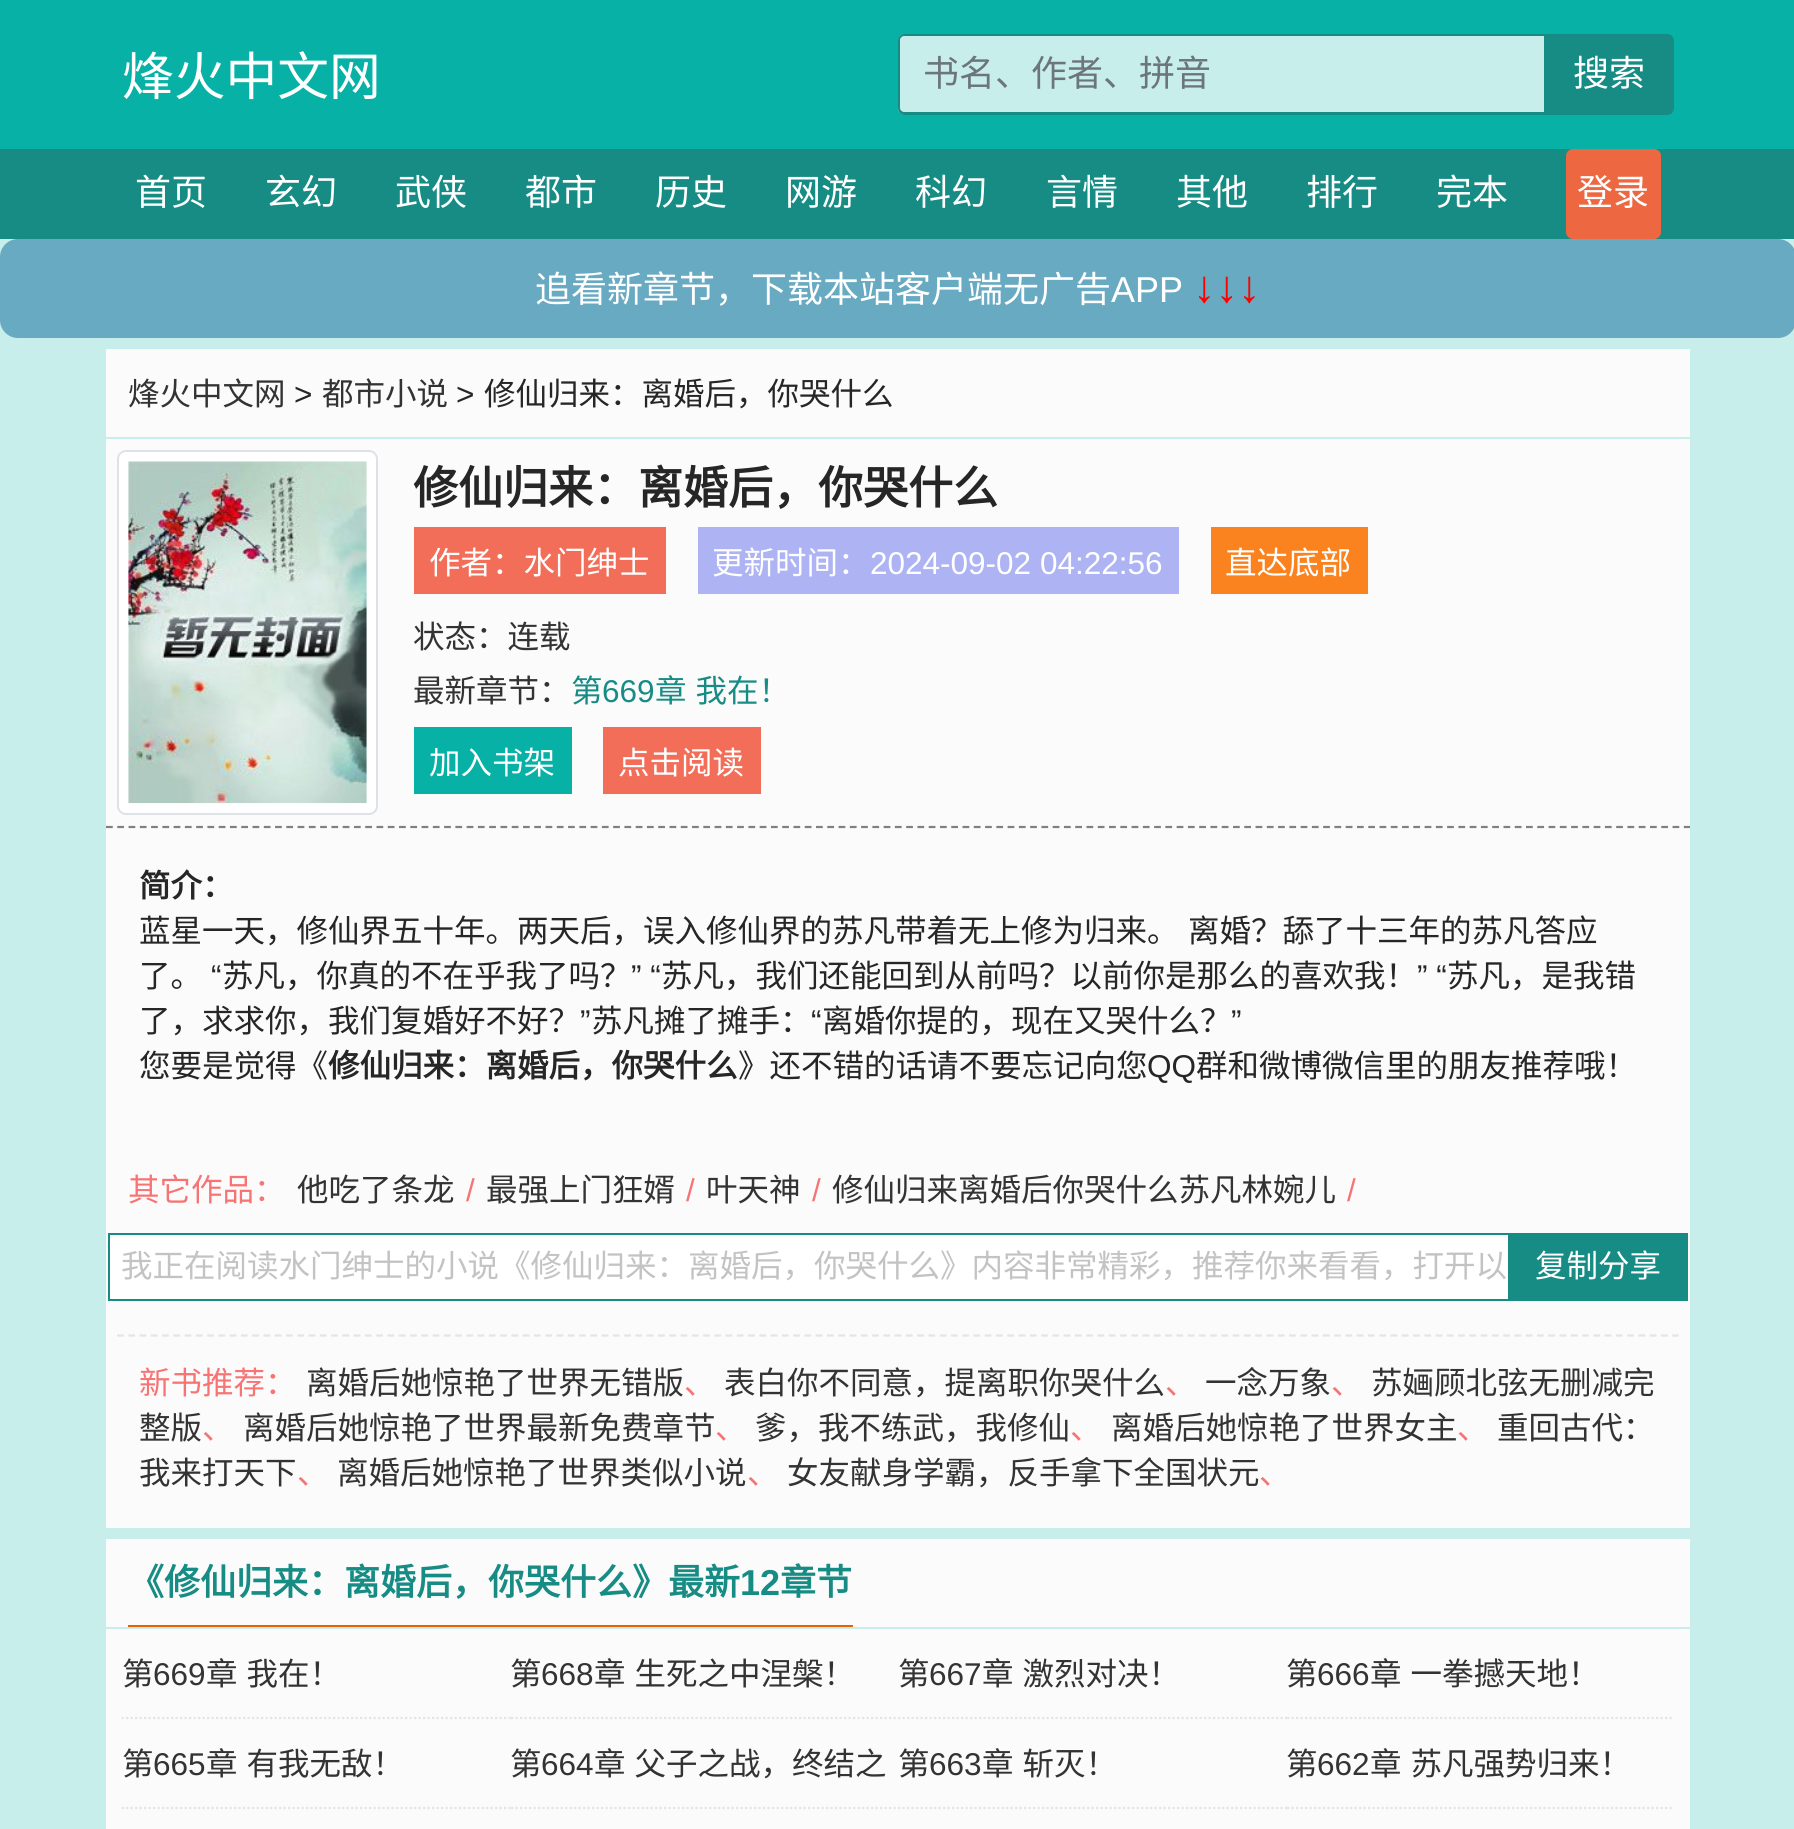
import math
import cairo

surface = cairo.ImageSurface(cairo.FORMAT_RGB24, 1794, 1829)
ctx = cairo.Context(surface)
options = cairo.FontOptions()
options.set_hint_metrics(cairo.HINT_METRICS_OFF)
options.set_hint_style(cairo.HINT_STYLE_NONE)
ctx.set_font_options(options)
ctx.set_miter_limit(4)


def set_color(code):
    ctx.set_source_rgb(*(v / 255 for v in bytes.fromhex(code[-6:])))


def draw_text(x, y, s, family, size, color, bold=False, italic=False):
    ctx.select_font_face(family, cairo.FONT_SLANT_ITALIC if italic else cairo.FONT_SLANT_NORMAL, cairo.FONT_WEIGHT_BOLD if bold else cairo.FONT_WEIGHT_NORMAL)
    ctx.set_font_size(size)
    set_color(color)
    ctx.move_to(x, y)
    ctx.show_text(s)


def draw_spaced(x, y, s, letter, word):
    ctx.move_to(x, y)
    for ch in s:
        ctx.show_text(ch)
        ctx.rel_move_to(letter + word * (ch == ' '), 0)


def fill_rect(x, y, w, h, color):
    set_color(color)
    ctx.rectangle(x, y, w, h)
    ctx.fill()


def rounded_rect(x, y, w, h, r):
    ctx.new_sub_path()
    for i, (u, v) in enumerate([(x + w - r, y + h - r), (x + r, y + h - r), (x + r, y + r), (x + w - r, y + r)]):
        ctx.arc(u, v, r, i * math.pi / 2, (i + 1) * math.pi / 2)
    ctx.close_path()


def draw_image(path, x, y, w, h):
    ctx.save()
    ctx.set_source_surface(cairo.ImageSurface.create_from_png(path), x, y)
    ctx.rectangle(x, y, w, h)
    ctx.fill()
    ctx.restore()


set_color("#c8eeeb")
ctx.paint()
fill_rect(0, 0, 1794, 149, "#07b1a6")
draw_text(122, 95, "烽火中文网", "Noto Sans CJK SC", 51.75, "#ffffff")
set_color("#c8eeeb")
ctx.new_path()
ctx.move_to(905, 34)
ctx.line_to(1546, 34)
ctx.line_to(1546, 115)
ctx.line_to(905, 115)
ctx.curve_to(901, 115, 898, 112, 898, 108)
ctx.line_to(898, 41)
ctx.curve_to(898, 37, 901, 34, 905, 34)
ctx.close_path()
ctx.fill()
set_color("#168c84")
ctx.set_fill_rule(cairo.FILL_RULE_EVEN_ODD)
ctx.new_path()
ctx.move_to(904, 34)
ctx.line_to(1546, 34)
ctx.line_to(1546, 115)
ctx.line_to(904, 115)
ctx.curve_to(901, 115, 898, 112, 898, 108)
ctx.line_to(898, 40)
ctx.curve_to(898, 37, 901, 34, 904, 34)
ctx.close_path()
ctx.move_to(904, 36)
ctx.line_to(1546, 36)
ctx.line_to(1546, 112)
ctx.line_to(904, 112)
ctx.curve_to(902, 112, 900, 110, 900, 108)
ctx.line_to(900, 40)
ctx.curve_to(900, 38, 902, 36, 904, 36)
ctx.close_path()
ctx.fill()
draw_text(923, 86, "书名、作者、拼音", "Noto Sans CJK SC", 36, "#6c757d")
set_color("#168c84")
ctx.new_path()
ctx.move_to(1544, 34)
ctx.line_to(1667, 34)
ctx.curve_to(1671, 34, 1674, 37, 1674, 41)
ctx.line_to(1674, 108)
ctx.curve_to(1674, 112, 1671, 115, 1667, 115)
ctx.line_to(1544, 115)
ctx.close_path()
ctx.fill()
draw_text(1573, 86, "搜索", "Noto Sans CJK SC", 36, "#ffffff")
fill_rect(0, 149, 1794, 90, "#168c84")
draw_text(135, 205, "首页", "Noto Sans CJK SC", 36, "#ffffff")
draw_text(265, 205, "玄幻", "Noto Sans CJK SC", 36, "#ffffff")
draw_text(395, 205, "武侠", "Noto Sans CJK SC", 36, "#ffffff")
draw_text(525, 205, "都市", "Noto Sans CJK SC", 36, "#ffffff")
draw_text(655, 205, "历史", "Noto Sans CJK SC", 36, "#ffffff")
draw_text(785, 205, "网游", "Noto Sans CJK SC", 36, "#ffffff")
draw_text(915, 205, "科幻", "Noto Sans CJK SC", 36, "#ffffff")
draw_text(1046, 205, "言情", "Noto Sans CJK SC", 36, "#ffffff")
draw_text(1176, 205, "其他", "Noto Sans CJK SC", 36, "#ffffff")
draw_text(1306, 205, "排行", "Noto Sans CJK SC", 36, "#ffffff")
draw_text(1436, 205, "完本", "Noto Sans CJK SC", 36, "#ffffff")
set_color("#ed6741")
rounded_rect(1566, 149, 95, 90, 7)
ctx.fill()
draw_text(1577, 205, "登录", "Noto Sans CJK SC", 36, "#ffffff")
set_color("#68aac2")
rounded_rect(0, 239, 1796, 99, 18)
ctx.fill()
draw_text(535, 302, "追看新章节，下载本站客户端无广告", "Noto Sans CJK SC", 36, "#ffffff")
draw_text(1111, 302, "APP", "Liberation Sans", 36, "#ffffff")
draw_text(1193, 302, "↓↓↓", "Liberation Serif", 45, "#ff0000", bold=True)
fill_rect(106, 349, 1584, 1179, "#fbfbfb")
fill_rect(106, 437, 1584, 2, "#c8eeeb")
draw_text(128, 405, "烽火中文网", "Noto Sans CJK SC", 31.5, "#333333")
draw_text(294, 405, ">", "Liberation Sans", 31.5, "#262626")
draw_text(322, 405, "都市小说", "Noto Sans CJK SC", 31.5, "#333333")
draw_text(456, 405, ">", "Liberation Sans", 31.5, "#262626")
draw_text(484, 405, "修仙归来：离婚后，你哭什么", "Noto Sans CJK SC", 31.5, "#262626")
set_color("#ffffff")
rounded_rect(118, 451, 259, 363, 8)
ctx.fill_preserve()
set_color("#dee2e6")
ctx.stroke()
draw_image("assets/img1.png", 128, 461, 239, 343)
draw_text(413, 504, "修仙归来：离婚后，你哭什么", "Noto Sans CJK SC", 45, "#262626", bold=True)
fill_rect(414, 527, 252, 67, "#f26e59")
draw_text(429, 574, "作者：水门绅士", "Noto Sans CJK SC", 31.5, "#ffffff")
fill_rect(698, 527, 481, 67, "#adb3f3")
draw_text(712, 574, "更新时间：", "Noto Sans CJK SC", 31.5, "#ffffff")
draw_text(870, 574, "2024-09-02 04:22:56", "Liberation Sans", 31.5, "#ffffff")
fill_rect(1211, 527, 157, 67, "#fa831f")
draw_text(1225, 574, "直达底部", "Noto Sans CJK SC", 31.5, "#ffffff")
draw_text(413, 648, "状态：连载", "Noto Sans CJK SC", 31.5, "#333333")
draw_text(413, 702, "最新章节：", "Noto Sans CJK SC", 31.5, "#333333")
draw_text(571, 702, "第", "Noto Sans CJK SC", 31.5, "#168c84")
draw_text(602, 702, "669", "Liberation Sans", 31.5, "#168c84")
ctx.select_font_face("Noto Sans CJK SC")
draw_spaced(655, 702, "章 我在！", 0, 2)
fill_rect(414, 727, 158, 67, "#07b1a6")
draw_text(429, 774, "加入书架", "Noto Sans CJK SC", 31.5, "#ffffff")
fill_rect(603, 727, 158, 67, "#f26e59")
draw_text(618, 774, "点击阅读", "Noto Sans CJK SC", 31.5, "#ffffff")
ctx.new_path()
ctx.move_to(106, 827)
ctx.line_to(1690, 827)
set_color("#808080")
ctx.set_line_width(2.2)
ctx.set_dash([6.75, 4.52])
ctx.stroke()
draw_text(139, 897, "简介：", "Noto Sans CJK SC", 31.5, "#262626", bold=True)
draw_text(139, 942, "蓝星一天，修仙界五十年。两天后，误入修仙界的苏凡带着无上修为归来。", "Noto Sans CJK SC", 31.5, "#262626")
draw_text(1188, 942, "离婚？舔了十三年的苏凡答应", "Noto Sans CJK SC", 31.5, "#262626")
draw_text(139, 987, "了。", "Noto Sans CJK SC", 31.5, "#262626")
draw_text(211, 987, "“", "Liberation Sans", 31.5, "#262626")
draw_text(222, 987, "苏凡，你真的不在乎我了吗？", "Noto Sans CJK SC", 31.5, "#262626")
draw_text(631, 987, "” “", "Liberation Sans", 31.5, "#262626")
draw_text(661, 987, "苏凡，我们还能回到从前吗？以前你是那么的喜欢我！", "Noto Sans CJK SC", 31.5, "#262626")
draw_text(1417, 987, "” “", "Liberation Sans", 31.5, "#262626")
draw_text(1447, 987, "苏凡，是我错", "Noto Sans CJK SC", 31.5, "#262626")
draw_text(139, 1032, "了，求求你，我们复婚好不好？", "Noto Sans CJK SC", 31.5, "#262626")
draw_text(580, 1032, "”", "Liberation Sans", 31.5, "#262626")
draw_text(591, 1032, "苏凡摊了摊手：", "Noto Sans CJK SC", 31.5, "#262626")
draw_text(811, 1032, "“", "Liberation Sans", 31.5, "#262626")
draw_text(822, 1032, "离婚你提的，现在又哭什么？", "Noto Sans CJK SC", 31.5, "#262626")
draw_text(1231, 1032, "”", "Liberation Sans", 31.5, "#262626")
draw_text(139, 1077, "您要是觉得《", "Noto Sans CJK SC", 31.5, "#262626")
draw_text(328, 1077, "修仙归来：离婚后，你哭什么", "Noto Sans CJK SC", 31.5, "#262626", bold=True)
draw_text(738, 1077, "》还不错的话请不要忘记向您", "Noto Sans CJK SC", 31.5, "#262626")
draw_text(1147, 1077, "QQ", "Liberation Sans", 31.5, "#262626")
draw_text(1196, 1077, "群和微博微信里的朋友推荐哦！", "Noto Sans CJK SC", 31.5, "#262626")
draw_text(128, 1201, "其它作品：", "Noto Sans CJK SC", 31.5, "#f77474")
draw_text(297, 1201, "他吃了条龙", "Noto Sans CJK SC", 31.5, "#333333")
draw_text(466, 1201, "/", "Liberation Sans", 31.5, "#f77474")
draw_text(486, 1201, "最强上门狂婿", "Noto Sans CJK SC", 31.5, "#333333")
draw_text(686, 1201, "/", "Liberation Sans", 31.5, "#f77474")
draw_text(706, 1201, "叶天神", "Noto Sans CJK SC", 31.5, "#333333")
draw_text(812, 1201, "/", "Liberation Sans", 31.5, "#f77474")
draw_text(832, 1201, "修仙归来离婚后你哭什么苏凡林婉儿", "Noto Sans CJK SC", 31.5, "#333333")
draw_text(1347, 1201, "/", "Liberation Sans", 31.5, "#f77474")
fill_rect(110, 1235, 1398, 64, "#ffffff")
ctx.rectangle(109, 1234, 1578, 66)
set_color("#168c84")
ctx.set_line_width(2)
ctx.set_dash([])
ctx.stroke()
draw_text(121, 1277, "我正在阅读水门绅士的小说《修仙归来：离婚后，你哭什么》内容非常精彩，推荐你来看看，打开以", "Noto Sans CJK SC", 31.5, "#c3c3c3")
fill_rect(1508, 1235, 178, 64, "#168c84")
draw_text(1535, 1277, "复制分享", "Noto Sans CJK SC", 31.5, "#ffffff")
ctx.new_path()
ctx.move_to(117, 1335.5)
ctx.line_to(1678.5, 1335.5)
set_color("#e5e5e5")
ctx.set_line_width(2.2)
ctx.set_dash([6.75, 4.52])
ctx.stroke()
draw_text(139, 1394, "新书推荐：", "Noto Sans CJK SC", 31.5, "#f77474")
draw_text(306, 1394, "离婚后她惊艳了世界无错版", "Noto Sans CJK SC", 31.5, "#333333")
draw_text(684, 1394, "、", "Noto Sans CJK SC", 31.5, "#f77474")
draw_text(724, 1394, "表白你不同意，提离职你哭什么", "Noto Sans CJK SC", 31.5, "#333333")
draw_text(1165, 1394, "、", "Noto Sans CJK SC", 31.5, "#f77474")
draw_text(1205, 1394, "一念万象", "Noto Sans CJK SC", 31.5, "#333333")
draw_text(1331, 1394, "、", "Noto Sans CJK SC", 31.5, "#f77474")
draw_text(1371, 1394, "苏婳顾北弦无删减完", "Noto Sans CJK SC", 31.5, "#333333")
draw_text(139, 1439, "整版", "Noto Sans CJK SC", 31.5, "#333333")
draw_text(202, 1439, "、", "Noto Sans CJK SC", 31.5, "#f77474")
draw_text(243, 1439, "离婚后她惊艳了世界最新免费章节", "Noto Sans CJK SC", 31.5, "#333333")
draw_text(715, 1439, "、", "Noto Sans CJK SC", 31.5, "#f77474")
draw_text(755, 1439, "爹，我不练武，我修仙", "Noto Sans CJK SC", 31.5, "#333333")
draw_text(1070, 1439, "、", "Noto Sans CJK SC", 31.5, "#f77474")
draw_text(1111, 1439, "离婚后她惊艳了世界女主", "Noto Sans CJK SC", 31.5, "#333333")
draw_text(1457, 1439, "、", "Noto Sans CJK SC", 31.5, "#f77474")
draw_text(1497, 1439, "重回古代：", "Noto Sans CJK SC", 31.5, "#333333")
draw_text(139, 1484, "我来打天下", "Noto Sans CJK SC", 31.5, "#333333")
draw_text(297, 1484, "、", "Noto Sans CJK SC", 31.5, "#f77474")
draw_text(337, 1484, "离婚后她惊艳了世界类似小说", "Noto Sans CJK SC", 31.5, "#333333")
draw_text(747, 1484, "、", "Noto Sans CJK SC", 31.5, "#f77474")
draw_text(787, 1484, "女友献身学霸，反手拿下全国状元", "Noto Sans CJK SC", 31.5, "#333333")
draw_text(1259, 1484, "、", "Noto Sans CJK SC", 31.5, "#f77474")
fill_rect(106, 1539, 1584, 290, "#fbfbfb")
fill_rect(106, 1627, 1584, 2, "#c8eeeb")
fill_rect(128, 1625, 725, 2, "#eb6100")
draw_text(128, 1595, "《修仙归来：离婚后，你哭什么》最新", "Noto Sans CJK SC", 36, "#168c84", bold=True)
draw_text(740, 1595, "12", "Liberation Sans", 36, "#168c84", bold=True)
draw_text(780, 1595, "章节", "Noto Sans CJK SC", 36, "#168c84", bold=True)
ctx.new_path()
ctx.move_to(121.5, 1718)
ctx.line_to(511, 1718)
set_color("#e5e5e5")
ctx.set_dash([2.25, 2.25])
ctx.stroke()
draw_text(122, 1685, "第", "Noto Sans CJK SC", 31.5, "#333333")
draw_text(153, 1685, "669", "Liberation Sans", 31.5, "#333333")
ctx.select_font_face("Noto Sans CJK SC")
draw_spaced(206, 1685, "章 我在！", 0, 2)
ctx.new_path()
ctx.move_to(511, 1718)
ctx.line_to(898, 1718)
set_color("#e5e5e5")
ctx.stroke()
draw_text(510, 1685, "第", "Noto Sans CJK SC", 31.5, "#333333")
draw_text(541, 1685, "668", "Liberation Sans", 31.5, "#333333")
ctx.select_font_face("Noto Sans CJK SC")
draw_spaced(594, 1685, "章 生死之中涅槃！", 0, 2)
ctx.new_path()
ctx.move_to(898, 1718)
ctx.line_to(1287, 1718)
set_color("#e5e5e5")
ctx.stroke()
draw_text(898, 1685, "第", "Noto Sans CJK SC", 31.5, "#333333")
draw_text(929, 1685, "667", "Liberation Sans", 31.5, "#333333")
ctx.select_font_face("Noto Sans CJK SC")
draw_spaced(982, 1685, "章 激烈对决！", 0, 2)
ctx.new_path()
ctx.move_to(1287, 1718)
ctx.line_to(1674, 1718)
set_color("#e5e5e5")
ctx.stroke()
draw_text(1286, 1685, "第", "Noto Sans CJK SC", 31.5, "#333333")
draw_text(1317, 1685, "666", "Liberation Sans", 31.5, "#333333")
ctx.select_font_face("Noto Sans CJK SC")
draw_spaced(1370, 1685, "章 一拳撼天地！", 0, 2)
ctx.new_path()
ctx.move_to(121.5, 1808)
ctx.line_to(511, 1808)
set_color("#e5e5e5")
ctx.stroke()
draw_text(122, 1775, "第", "Noto Sans CJK SC", 31.5, "#333333")
draw_text(153, 1775, "665", "Liberation Sans", 31.5, "#333333")
ctx.select_font_face("Noto Sans CJK SC")
draw_spaced(206, 1775, "章 有我无敌！", 0, 2)
ctx.new_path()
ctx.move_to(511, 1808)
ctx.line_to(898, 1808)
set_color("#e5e5e5")
ctx.stroke()
draw_text(510, 1775, "第", "Noto Sans CJK SC", 31.5, "#333333")
draw_text(541, 1775, "664", "Liberation Sans", 31.5, "#333333")
ctx.select_font_face("Noto Sans CJK SC")
draw_spaced(594, 1775, "章 父子之战，终结之", 0, 2)
ctx.new_path()
ctx.move_to(898, 1808)
ctx.line_to(1287, 1808)
set_color("#e5e5e5")
ctx.stroke()
draw_text(898, 1775, "第", "Noto Sans CJK SC", 31.5, "#333333")
draw_text(929, 1775, "663", "Liberation Sans", 31.5, "#333333")
ctx.select_font_face("Noto Sans CJK SC")
draw_spaced(982, 1775, "章 斩灭！", 0, 2)
ctx.new_path()
ctx.move_to(1287, 1808)
ctx.line_to(1674, 1808)
set_color("#e5e5e5")
ctx.stroke()
draw_text(1286, 1775, "第", "Noto Sans CJK SC", 31.5, "#333333")
draw_text(1317, 1775, "662", "Liberation Sans", 31.5, "#333333")
ctx.select_font_face("Noto Sans CJK SC")
draw_spaced(1370, 1775, "章 苏凡强势归来！", 0, 2)
surface.write_to_png("output.png")
